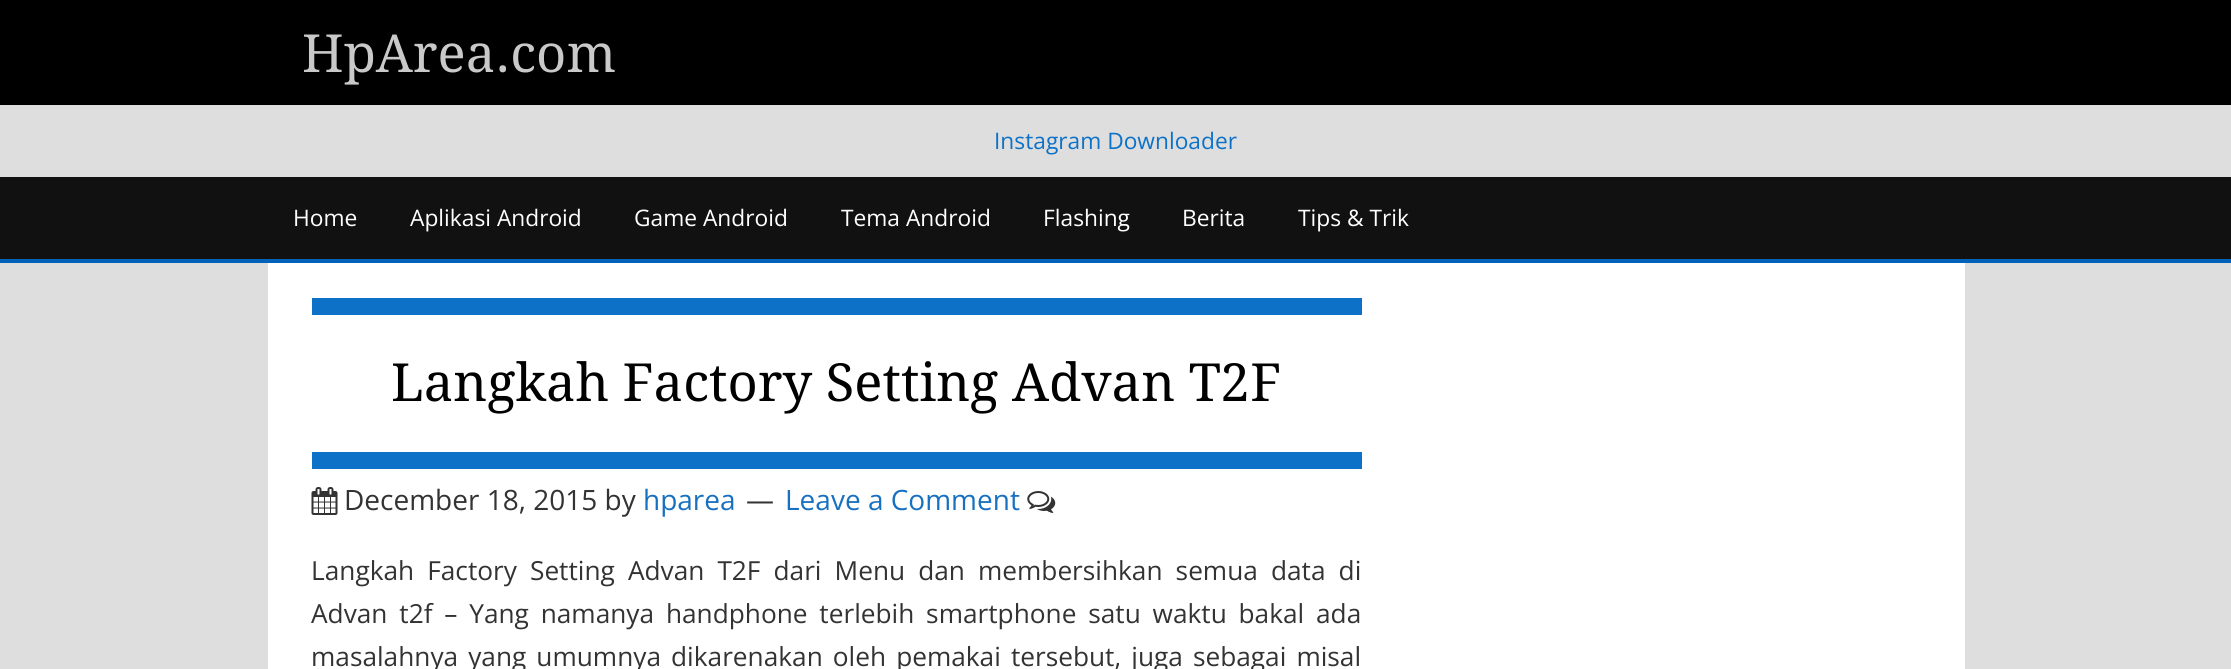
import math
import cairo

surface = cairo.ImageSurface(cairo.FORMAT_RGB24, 2231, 669)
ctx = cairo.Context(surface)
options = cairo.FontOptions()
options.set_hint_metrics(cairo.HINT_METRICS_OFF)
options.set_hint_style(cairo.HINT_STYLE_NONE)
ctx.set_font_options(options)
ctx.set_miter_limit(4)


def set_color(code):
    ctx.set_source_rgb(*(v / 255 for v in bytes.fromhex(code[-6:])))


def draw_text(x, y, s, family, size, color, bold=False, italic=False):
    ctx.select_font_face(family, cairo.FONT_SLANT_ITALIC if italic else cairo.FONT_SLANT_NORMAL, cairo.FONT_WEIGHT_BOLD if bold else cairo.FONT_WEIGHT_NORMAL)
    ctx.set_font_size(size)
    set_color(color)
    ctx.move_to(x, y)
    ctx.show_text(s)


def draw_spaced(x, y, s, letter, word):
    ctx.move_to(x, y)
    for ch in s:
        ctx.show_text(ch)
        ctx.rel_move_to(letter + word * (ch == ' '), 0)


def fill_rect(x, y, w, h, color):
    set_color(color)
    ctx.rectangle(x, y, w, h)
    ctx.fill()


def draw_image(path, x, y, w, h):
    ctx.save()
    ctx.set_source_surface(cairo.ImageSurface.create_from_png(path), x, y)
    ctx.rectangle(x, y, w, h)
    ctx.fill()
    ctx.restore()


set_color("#dedede")
ctx.paint()
fill_rect(0, 0, 2231, 105, "#000000")
draw_text(302, 72, "HpArea.com", "Droid Serif", 52.5, "#c9c9c9")
draw_text(994, 149, "Instagram Downloader", "Open Sans", 22.75, "#0d72c7")
fill_rect(0, 177, 2231, 82, "#111111")
fill_rect(0, 259, 2231, 4, "#0062b9")
draw_text(293, 226, "Home", "Open Sans", 22.75, "#ffffff")
draw_text(410, 226, "Aplikasi Android", "Open Sans", 22.75, "#ffffff")
draw_text(634, 226, "Game Android", "Open Sans", 22.75, "#ffffff")
draw_text(841, 226, "Tema Android", "Open Sans", 22.75, "#ffffff")
draw_text(1043, 226, "Flashing", "Open Sans", 22.75, "#ffffff")
draw_text(1182, 226, "Berita", "Open Sans", 22.75, "#ffffff")
draw_text(1298, 226, "Tips & Trik", "Open Sans", 22.75, "#ffffff")
fill_rect(268, 263, 1697, 406, "#ffffff")
fill_rect(312, 298, 1050, 17, "#0d72c7")
fill_rect(312, 452, 1050, 17, "#0d72c7")
draw_text(391, 401, "Langkah Factory Setting Advan T2F", "Droid Serif", 52.5, "#000000")
draw_image("assets/img1.png", 311, 487, 27, 28)
draw_text(344, 510, "December 18, 2015 by", "Open Sans", 28, "#333333")
draw_text(643, 510, "hparea", "Open Sans", 28, "#1870c0")
draw_text(746, 510, "—", "Open Sans", 28, "#333333")
draw_text(785, 510, "Leave a Comment", "Open Sans", 28, "#1870c0")
draw_image("assets/img2.png", 1027, 491, 29, 22)
ctx.set_font_size(26.25)
set_color("#333333")
draw_spaced(311, 580, "Langkah Factory Setting Advan T2F dari Menu dan membersihkan semua data di", 0, 6.25)
draw_spaced(311, 623, "Advan t2f – Yang namanya handphone terlebih smartphone satu waktu bakal ada", 0, 5)
draw_spaced(311, 666, "masalahnya yang umumnya dikarenakan oleh pemakai tersebut, juga sebagai misal", 0, 3.25)
surface.write_to_png("output.png")
